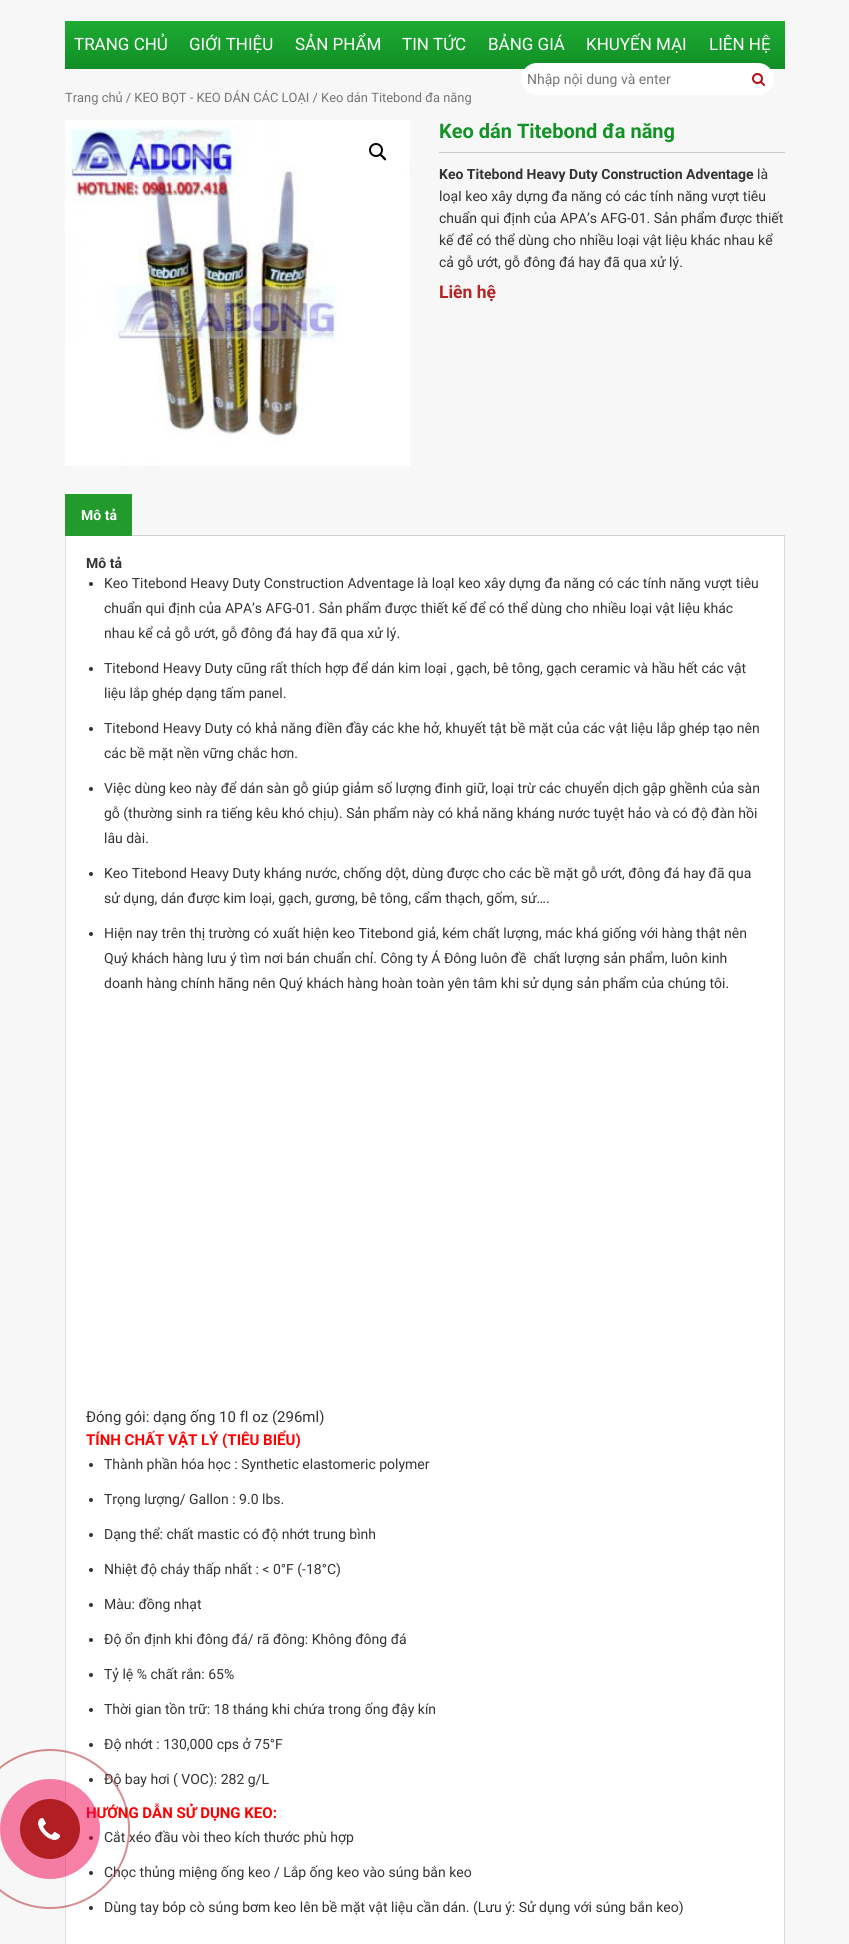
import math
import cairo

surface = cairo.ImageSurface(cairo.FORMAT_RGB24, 849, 1944)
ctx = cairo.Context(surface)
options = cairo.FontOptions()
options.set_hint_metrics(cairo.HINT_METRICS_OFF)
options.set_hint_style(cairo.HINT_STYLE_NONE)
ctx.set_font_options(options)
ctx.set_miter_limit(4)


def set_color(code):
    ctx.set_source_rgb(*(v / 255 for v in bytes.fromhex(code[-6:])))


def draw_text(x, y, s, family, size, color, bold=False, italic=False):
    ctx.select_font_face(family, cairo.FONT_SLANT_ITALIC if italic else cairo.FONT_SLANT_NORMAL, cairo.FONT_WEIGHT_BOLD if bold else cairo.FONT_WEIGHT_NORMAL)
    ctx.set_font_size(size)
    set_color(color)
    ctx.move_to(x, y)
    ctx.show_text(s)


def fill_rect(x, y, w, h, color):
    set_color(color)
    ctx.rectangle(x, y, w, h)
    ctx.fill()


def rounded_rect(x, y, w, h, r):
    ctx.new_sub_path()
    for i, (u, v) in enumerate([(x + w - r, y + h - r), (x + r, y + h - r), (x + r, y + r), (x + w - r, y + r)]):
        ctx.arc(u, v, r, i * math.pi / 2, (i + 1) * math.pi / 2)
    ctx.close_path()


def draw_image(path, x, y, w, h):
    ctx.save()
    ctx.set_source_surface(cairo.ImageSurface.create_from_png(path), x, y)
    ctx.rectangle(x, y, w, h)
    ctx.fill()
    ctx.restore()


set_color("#f7f7f7")
ctx.paint()
gradient = cairo.LinearGradient(425, 21, 425, 69)
gradient.add_color_stop_rgba(0, 0.114, 0.671, 0.2, 1)
gradient.add_color_stop_rgba(0.5, 0.09, 0.616, 0.173, 1)
gradient.add_color_stop_rgba(1, 0.063, 0.557, 0.141, 1)
ctx.set_source(gradient)
ctx.rectangle(65, 21, 720, 48)
ctx.fill()
draw_text(74, 50, "TRANG CHỦ", "Roboto", 17, "#ffffff")
draw_text(189, 50, "GIỚI THIỆU", "Roboto", 17, "#ffffff")
draw_text(295, 50, "SẢN PHẨM", "Roboto", 17, "#ffffff")
draw_text(402, 50, "TIN TỨC", "Roboto", 17, "#ffffff")
draw_text(488, 50, "BẢNG GIÁ", "Roboto", 17, "#ffffff")
draw_text(586, 50, "KHUYẾN MẠI", "Roboto", 17, "#ffffff")
draw_text(709, 50, "LIÊN HỆ", "Roboto", 17, "#ffffff")
rounded_rect(521, 63, 253, 32, 16)
ctx.fill()
draw_text(527, 84, "Nhập nội dung và enter", "Roboto", 14, "#757575")
draw_image("assets/img1.png", 752, 73, 13, 13)
fill_rect(66, 536, 718, 1408, "#ffffff")
fill_rect(65, 536, 1, 1408, "#dddddd")
draw_text(104, 1749, "Độ nhớt : 130,000 cps ở 75°F", "Roboto", 14, "#333333")
ctx.new_path()
ctx.arc(91, 1780, 2, 0, 2 * math.pi)
ctx.fill()
draw_text(104, 1784, "Độ bay hơi ( VOC): 282 g/L", "Roboto", 14, "#333333")
draw_text(86, 1818, "HƯỚNG DẪN SỬ DỤNG KEO:", "Roboto", 15, "#ff0000", bold=True)
set_color("#333333")
ctx.new_path()
ctx.arc(91, 1838, 2, 0, 2 * math.pi)
ctx.fill()
draw_text(104, 1842, "Cắt xéo đầu vòi theo kích thước phù hợp", "Roboto", 14, "#333333")
ctx.new_path()
ctx.arc(91, 1873, 2, 0, 2 * math.pi)
ctx.fill()
draw_text(104, 1877, "Chọc thủng miệng ống keo / Lắp ống keo vào súng bắn keo", "Roboto", 14, "#333333")
ctx.new_path()
ctx.arc(91, 1908, 2, 0, 2 * math.pi)
ctx.fill()
draw_text(104, 1912, "Dùng tay bóp cò súng bơm keo lên bề mặt vật liệu cần dán. (Lưu ý: Sử dụng với súng bắn keo)", "Roboto", 14, "#333333")
ctx.new_path()
ctx.arc(50, 1829, 79, 0, 2 * math.pi)
ctx.set_source_rgba(0.694, 0.122, 0.137, 0.5)
ctx.stroke()
ctx.set_source_rgba(0.949, 0, 0.306, 0.5)
ctx.arc(50, 1829, 50, 0, 2 * math.pi)
ctx.fill()
set_color("#b11f23")
ctx.arc(50, 1829, 30, 0, 2 * math.pi)
ctx.fill()
draw_image("assets/img2.png", 38, 1818, 22, 22)
draw_text(65, 102, "Trang chủ / KEO BỌT - KEO DÁN CÁC LOẠI / Keo dán Titebond đa năng", "Roboto", 12.9, "#757575")
draw_image("assets/img3.png", 65, 120, 345, 346)
ctx.arc(376, 150, 6, 0, 2 * math.pi)
set_color("#000000")
ctx.stroke()
ctx.new_path()
ctx.move_to(380.5, 154.5)
ctx.curve_to(381.5, 153, 383, 156, 384, 156.5)
ctx.curve_to(384.5, 157, 387, 159, 386, 160)
ctx.curve_to(384.5, 161.5, 383, 158.5, 382.5, 158)
ctx.curve_to(382, 157.5, 379, 155.5, 380.5, 154.5)
ctx.close_path()
ctx.fill()
draw_text(439, 138, "Keo dán Titebond đa năng", "Roboto", 20, "#129326", bold=True)
fill_rect(439, 152, 346, 1, "#cccccc")
draw_text(439, 179, "Keo Titebond Heavy Duty Construction Adventage", "Roboto", 14, "#333333", bold=True)
draw_text(757, 179, "là", "Roboto", 14, "#333333")
draw_text(439, 201, "loạI keo xây dựng đa năng có các tính năng vượt tiêu", "Roboto", 14, "#333333")
draw_text(439, 223, "chuẩn qui định của APA’s AFG-01. Sản phẩm được thiết", "Roboto", 14, "#333333")
draw_text(439, 245, "kế để có thể dùng cho nhiều loại vật liệu khác nhau kể", "Roboto", 14, "#333333")
draw_text(439, 267, "cả gỗ ướt, gỗ đông đá hay đã qua xử lý.", "Roboto", 14, "#333333")
draw_text(439, 298, "Liên hệ", "Roboto", 17.5, "#b52525", bold=True)
set_color("#239a2c")
ctx.rectangle(65.5, 494.5, 66, 41)
ctx.fill_preserve()
set_color("#249e2d")
ctx.set_line_width(1)
ctx.stroke()
draw_text(81, 520, "Mô tả", "Roboto", 14, "#ffffff", bold=True)
fill_rect(132, 535, 653, 1, "#d3ced2")
fill_rect(784, 536, 1, 1408, "#dddddd")
draw_text(86, 568, "Mô tả", "Roboto", 14, "#333333", bold=True)
ctx.new_path()
ctx.arc(91, 584, 2, 0, 2 * math.pi)
ctx.fill()
draw_text(104, 588, "Keo Titebond Heavy Duty Construction Adventage là loạI keo xây dựng đa năng có các tính năng vượt tiêu", "Roboto", 14, "#333333")
draw_text(104, 613, "chuẩn qui định của APA’s AFG-01. Sản phẩm được thiết kế để có thể dùng cho nhiều loại vật liệu khác", "Roboto", 14, "#333333")
draw_text(104, 638, "nhau kể cả gỗ ướt, gỗ đông đá hay đã qua xử lý.", "Roboto", 14, "#333333")
ctx.new_path()
ctx.arc(91, 669, 2, 0, 2 * math.pi)
ctx.fill()
draw_text(104, 673, "Titebond Heavy Duty cũng rất thích hợp để dán kim loại , gạch, bê tông, gạch ceramic và hầu hết các vật", "Roboto", 14, "#333333")
draw_text(104, 698, "liệu lắp ghép dạng tấm panel.", "Roboto", 14, "#333333")
ctx.new_path()
ctx.arc(91, 729, 2, 0, 2 * math.pi)
ctx.fill()
draw_text(104, 733, "Titebond Heavy Duty có khả năng điền đầy các khe hở, khuyết tật bề mặt của các vật liệu lắp ghép tạo nên", "Roboto", 14, "#333333")
draw_text(104, 758, "các bề mặt nền vững chắc hơn.", "Roboto", 14, "#333333")
ctx.new_path()
ctx.arc(91, 789, 2, 0, 2 * math.pi)
ctx.fill()
draw_text(104, 793, "Việc dùng keo này để dán sàn gỗ giúp giảm số lượng đinh giữ, loại trừ các chuyển dịch gập ghềnh của sàn", "Roboto", 14, "#333333")
draw_text(104, 818, "gỗ (thường sinh ra tiếng kêu khó chịu). Sản phẩm này có khả năng kháng nước tuyệt hảo và có độ đàn hồi", "Roboto", 14, "#333333")
draw_text(104, 843, "lâu dài.", "Roboto", 14, "#333333")
ctx.new_path()
ctx.arc(91, 874, 2, 0, 2 * math.pi)
ctx.fill()
draw_text(104, 878, "Keo Titebond Heavy Duty kháng nước, chống dột, dùng được cho các bề mặt gỗ ướt, đông đá hay đã qua", "Roboto", 14, "#333333")
draw_text(104, 903, "sử dụng, dán được kim loại, gạch, gương, bê tông, cẩm thạch, gốm, sứ….", "Roboto", 14, "#333333")
ctx.new_path()
ctx.arc(91, 934, 2, 0, 2 * math.pi)
ctx.fill()
draw_text(104, 938, "Hiện nay trên thị trường có xuất hiện keo Titebond giả, kém chất lượng, mác khá giống với hàng thật nên", "Roboto", 14, "#333333")
draw_text(104, 963, "Quý khách hàng lưu ý tìm nơi bán chuẩn chỉ. Công ty Á Đông luôn đề  chất lượng sản phẩm, luôn kinh", "Roboto", 14, "#333333")
draw_text(104, 988, "doanh hàng chính hãng nên Quý khách hàng hoàn toàn yên tâm khi sử dụng sản phẩm của chúng tôi.", "Roboto", 14, "#333333")
draw_text(86, 1422, "Đóng gói: dạng ống 10 fl oz (296ml)", "Roboto", 15, "#333333")
draw_text(86, 1445, "TÍNH CHẤT VẬT LÝ (TIÊU BIỂU)", "Roboto", 15, "#ff0000", bold=True)
set_color("#333333")
ctx.new_path()
ctx.arc(91, 1465, 2, 0, 2 * math.pi)
ctx.fill()
draw_text(104, 1469, "Thành phần hóa học : Synthetic elastomeric polymer", "Roboto", 14, "#333333")
ctx.new_path()
ctx.arc(91, 1500, 2, 0, 2 * math.pi)
ctx.fill()
draw_text(104, 1504, "Trọng lượng/ Gallon : 9.0 lbs.", "Roboto", 14, "#333333")
ctx.new_path()
ctx.arc(91, 1535, 2, 0, 2 * math.pi)
ctx.fill()
draw_text(104, 1539, "Dạng thể: chất mastic có độ nhớt trung bình", "Roboto", 14, "#333333")
ctx.new_path()
ctx.arc(91, 1570, 2, 0, 2 * math.pi)
ctx.fill()
draw_text(104, 1574, "Nhiệt độ cháy thấp nhất : < 0°F (-18°C)", "Roboto", 14, "#333333")
ctx.new_path()
ctx.arc(91, 1605, 2, 0, 2 * math.pi)
ctx.fill()
draw_text(104, 1609, "Màu: đồng nhạt", "Roboto", 14, "#333333")
ctx.new_path()
ctx.arc(91, 1640, 2, 0, 2 * math.pi)
ctx.fill()
draw_text(104, 1644, "Độ ổn định khi đông đá/ rã đông: Không đông đá", "Roboto", 14, "#333333")
ctx.new_path()
ctx.arc(91, 1675, 2, 0, 2 * math.pi)
ctx.fill()
draw_text(104, 1679, "Tỷ lệ % chất rắn: 65%", "Roboto", 14, "#333333")
ctx.new_path()
ctx.arc(91, 1710, 2, 0, 2 * math.pi)
ctx.fill()
draw_text(104, 1714, "Thời gian tồn trữ: 18 tháng khi chứa trong ống đậy kín", "Roboto", 14, "#333333")
ctx.new_path()
ctx.arc(91, 1745, 2, 0, 2 * math.pi)
ctx.fill()
surface.write_to_png("output.png")
